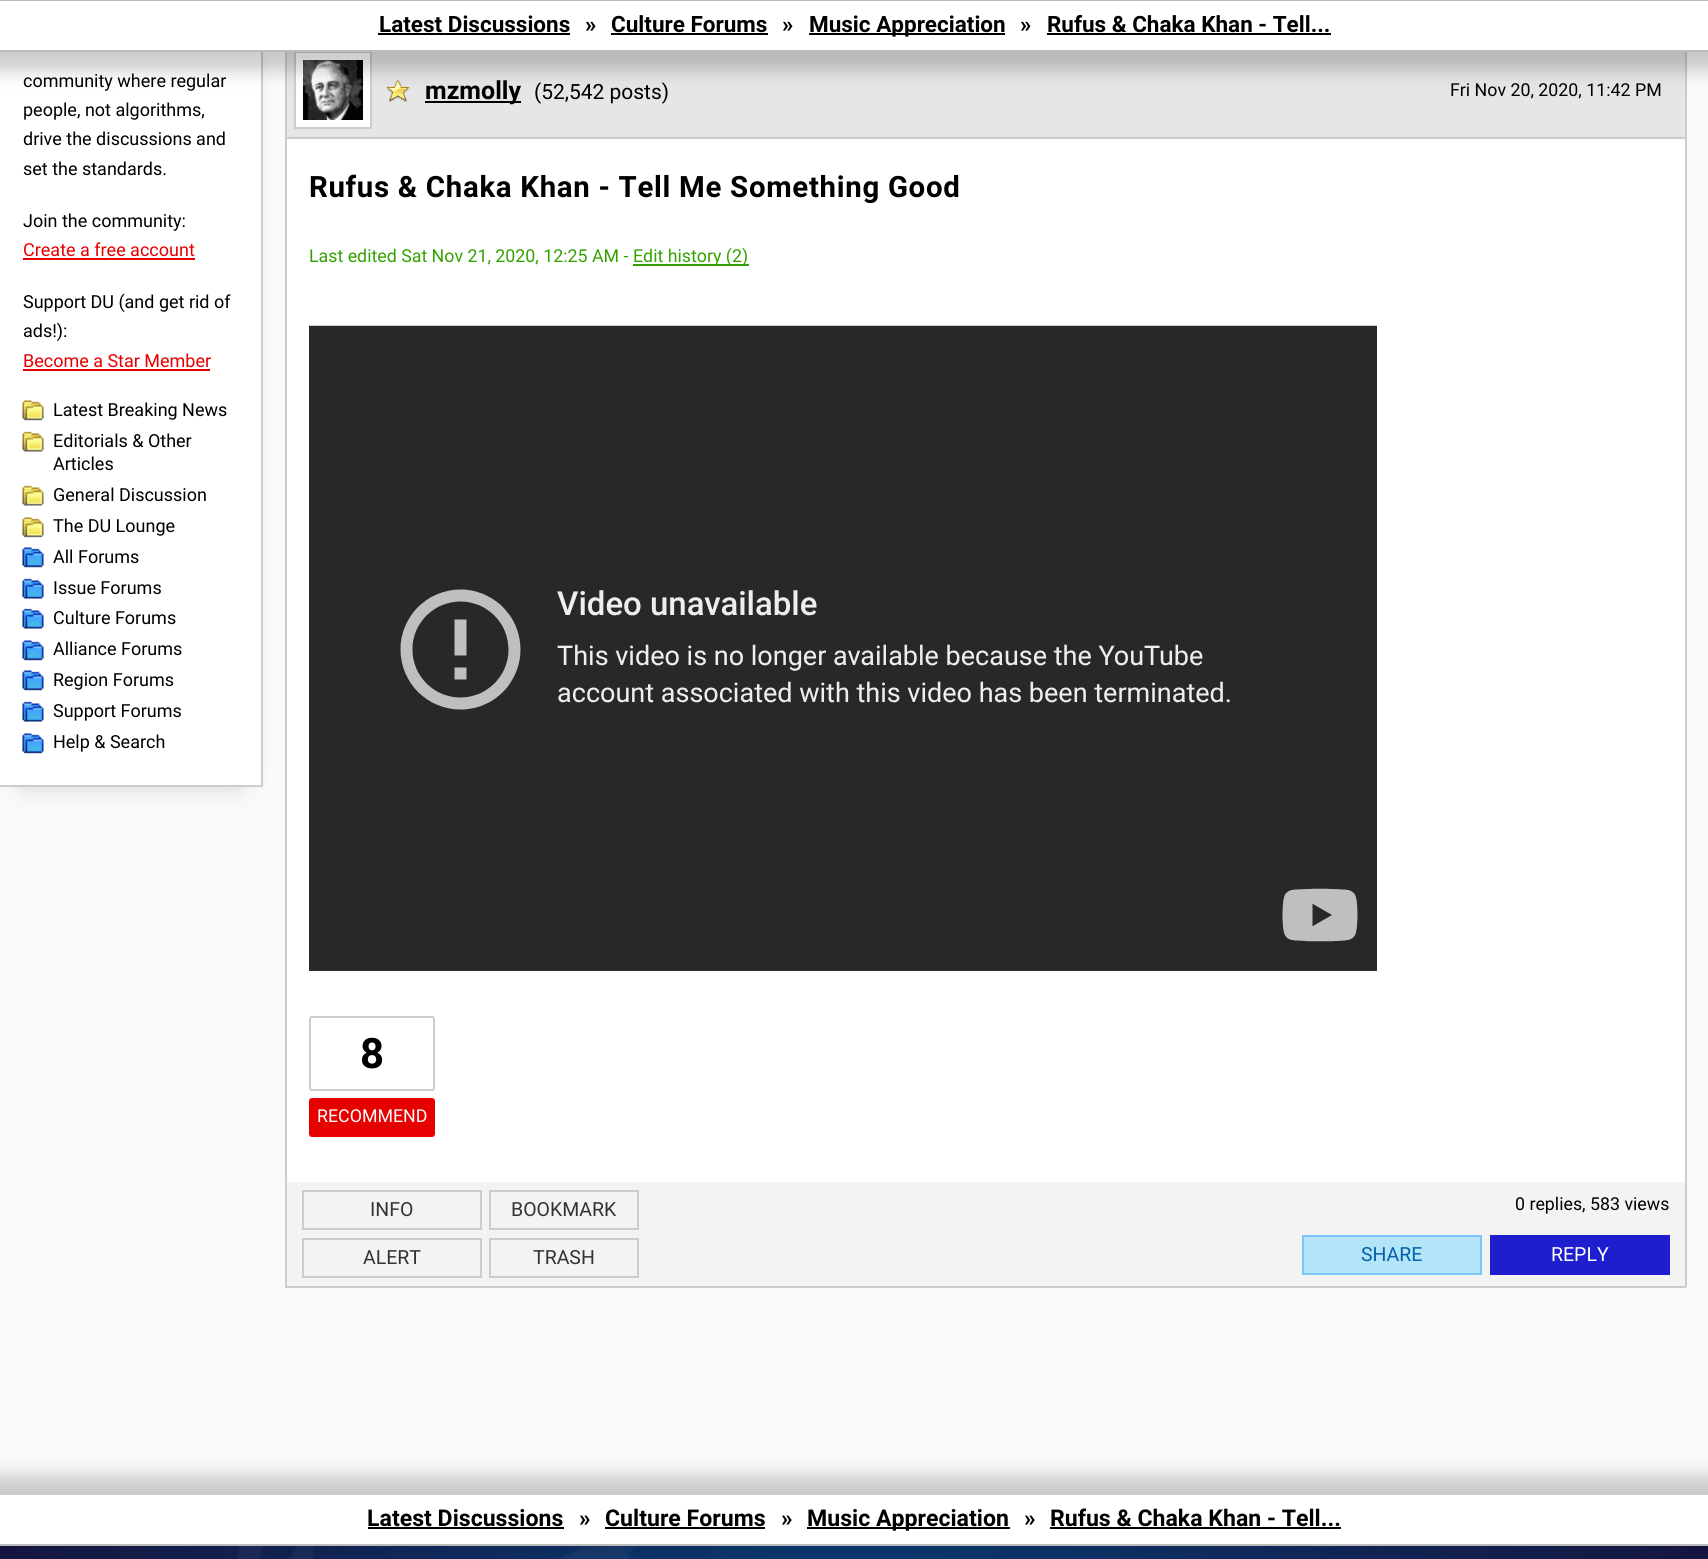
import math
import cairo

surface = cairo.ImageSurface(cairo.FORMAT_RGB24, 1708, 1559)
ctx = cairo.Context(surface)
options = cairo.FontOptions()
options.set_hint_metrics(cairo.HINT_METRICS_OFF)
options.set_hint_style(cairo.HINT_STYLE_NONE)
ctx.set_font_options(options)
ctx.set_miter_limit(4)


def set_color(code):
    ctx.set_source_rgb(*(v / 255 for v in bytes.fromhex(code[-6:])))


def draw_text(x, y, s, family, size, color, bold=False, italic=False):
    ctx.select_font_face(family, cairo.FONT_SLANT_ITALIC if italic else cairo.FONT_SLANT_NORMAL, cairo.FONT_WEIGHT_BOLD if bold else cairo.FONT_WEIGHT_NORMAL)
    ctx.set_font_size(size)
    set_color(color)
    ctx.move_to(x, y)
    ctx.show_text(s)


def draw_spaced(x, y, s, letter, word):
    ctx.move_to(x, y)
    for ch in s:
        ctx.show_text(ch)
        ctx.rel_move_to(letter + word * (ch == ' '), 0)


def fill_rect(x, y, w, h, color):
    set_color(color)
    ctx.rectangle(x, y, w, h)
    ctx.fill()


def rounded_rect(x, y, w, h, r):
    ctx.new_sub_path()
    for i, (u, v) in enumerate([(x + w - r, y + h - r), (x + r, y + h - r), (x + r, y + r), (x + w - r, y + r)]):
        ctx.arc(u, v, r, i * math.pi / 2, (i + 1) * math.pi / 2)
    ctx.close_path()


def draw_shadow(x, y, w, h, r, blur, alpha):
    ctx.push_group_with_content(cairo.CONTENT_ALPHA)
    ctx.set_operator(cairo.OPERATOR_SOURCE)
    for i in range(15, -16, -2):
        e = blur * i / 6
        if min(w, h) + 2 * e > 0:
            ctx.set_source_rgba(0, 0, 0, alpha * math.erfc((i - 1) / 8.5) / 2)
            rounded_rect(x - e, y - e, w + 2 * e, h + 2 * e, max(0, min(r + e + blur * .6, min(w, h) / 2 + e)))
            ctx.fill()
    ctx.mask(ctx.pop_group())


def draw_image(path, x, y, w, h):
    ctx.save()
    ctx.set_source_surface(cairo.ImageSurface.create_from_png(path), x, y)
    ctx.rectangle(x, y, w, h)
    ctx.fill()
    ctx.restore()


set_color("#fafafa")
ctx.paint()
fill_rect(285, 52, 2, 85, "#cccccc")
fill_rect(285, 137, 1401, 2, "#cccccc")
fill_rect(285, 137, 2, 1045, "#cccccc")
set_color("#000000")
draw_shadow(23, -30, 217, 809, 0, 15, 0.25)
fill_rect(0, 52, 261, 733, "#ffffff")
fill_rect(261, 52, 2, 734, "#cccccc")
fill_rect(287, 52, 1398, 85, "#e6e6e6")
fill_rect(1685, 52, 2, 85, "#cccccc")
set_color("#ffffff")
ctx.rectangle(295, 52, 76, 76)
ctx.fill_preserve()
set_color("#cccccc")
ctx.stroke()
draw_image("assets/img5.png", 303, 60, 60, 60)
draw_image("assets/img6.png", 387, 79, 23, 23)
set_color("#000000")
draw_shadow(-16, -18, 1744, 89, 0, 9, 0.2)
fill_rect(0, 1, 1708, 49, "#ffffff")
fill_rect(0, 0, 1708, 1, "#bbbbbb")
fill_rect(0, 50, 1708, 2, "#bbbbbb")
draw_text(379, 32, "Latest Discussions", "Roboto", 22.5, "#000000", bold=True)
fill_rect(378, 33, 192, 2, "#000000")
draw_text(585, 32, "»", "Roboto", 22.5, "#000000", bold=True)
draw_text(611, 32, "Culture Forums", "Roboto", 22.5, "#000000", bold=True)
fill_rect(611, 33, 157, 2, "#000000")
draw_text(782, 32, "»", "Roboto", 22.5, "#000000", bold=True)
fill_rect(809, 33, 196, 2, "#000000")
draw_text(809, 32, "Music Appreciation", "Roboto", 22.5, "#000000", bold=True)
draw_text(1020, 32, "»", "Roboto", 22.5, "#000000", bold=True)
draw_text(1047, 32, "Rufus & Chaka Khan - Tell...", "Roboto", 22.5, "#000000", bold=True)
fill_rect(1047, 33, 284, 2, "#000000")
fill_rect(0, 785, 263, 2, "#cccccc")
draw_text(23, 87, "community where regular", "Roboto", 18, "#000000")
draw_text(23, 116, "people, not algorithms,", "Roboto", 18, "#000000")
draw_text(23, 145, "drive the discussions and", "Roboto", 18, "#000000")
draw_text(23, 175, "set the standards.", "Roboto", 18, "#000000")
draw_text(23, 227, "Join the community:", "Roboto", 18, "#000000")
draw_text(23, 256, "Create a free account", "Roboto", 18, "#e60000")
fill_rect(23, 258, 172, 2, "#e60000")
draw_text(23, 308, "Support DU (and get rid of", "Roboto", 18, "#000000")
draw_text(23, 337, "ads!):", "Roboto", 18, "#000000")
draw_text(23, 367, "Become a Star Member", "Roboto", 18, "#e60000")
fill_rect(23, 369, 187, 2, "#e60000")
draw_image("assets/img1.png", 22, 400, 22, 21)
draw_text(53, 416, "Latest Breaking News", "Roboto", 18, "#000000")
draw_image("assets/img2.png", 22, 431, 22, 21)
draw_text(53, 447, "Editorials & Other", "Roboto", 18, "#000000")
draw_text(53, 470, "Articles", "Roboto", 18, "#000000")
draw_image("assets/img2.png", 22, 485, 22, 21)
draw_text(53, 501, "General Discussion", "Roboto", 18, "#000000")
draw_image("assets/img1.png", 22, 517, 22, 21)
draw_text(53, 532, "The DU Lounge", "Roboto", 18, "#000000")
draw_image("assets/img3.png", 22, 547, 22, 21)
draw_text(53, 563, "All Forums", "Roboto", 18, "#000000")
draw_image("assets/img4.png", 22, 578, 22, 21)
draw_text(53, 594, "Issue Forums", "Roboto", 18, "#000000")
draw_image("assets/img4.png", 22, 608, 22, 21)
draw_text(53, 624, "Culture Forums", "Roboto", 18, "#000000")
draw_image("assets/img3.png", 22, 640, 22, 21)
draw_text(53, 655, "Alliance Forums", "Roboto", 18, "#000000")
draw_image("assets/img3.png", 22, 670, 22, 21)
draw_text(53, 686, "Region Forums", "Roboto", 18, "#000000")
draw_image("assets/img4.png", 22, 701, 22, 21)
draw_text(53, 717, "Support Forums", "Roboto", 18, "#000000")
draw_image("assets/img3.png", 22, 733, 22, 21)
draw_text(53, 748, "Help & Search", "Roboto", 18, "#000000")
fill_rect(425, 101, 96, 2, "#000000")
draw_text(425, 99, "mzmolly", "Roboto", 25, "#000000", bold=True)
draw_text(534, 99, "(52,542 posts)", "Roboto", 21, "#000000")
draw_text(1450, 96, "Fri Nov 20, 2020, 11:42 PM", "Roboto", 17.8, "#000000")
fill_rect(287, 139, 1398, 1043, "#ffffff")
fill_rect(1685, 137, 2, 1150, "#cccccc")
ctx.select_font_face("Roboto", cairo.FONT_SLANT_NORMAL, cairo.FONT_WEIGHT_BOLD)
ctx.set_font_size(29.4)
set_color("#000000")
draw_spaced(309, 197, "Rufus & Chaka Khan - Tell Me Something Good", 0.7, 0)
draw_text(309, 262, "Last edited Sat Nov 21, 2020, 12:25 AM -", "Roboto", 17.8, "#33a200")
fill_rect(633, 264, 116, 2, "#33a200")
draw_text(633, 262, "Edit history (2)", "Roboto", 17.8, "#33a200")
draw_image("assets/img7.png", 309, 325, 1068, 646)
rounded_rect(310, 1017, 124, 73, 2)
set_color("#cccccc")
ctx.stroke()
draw_text(360, 1068, "8", "Roboto", 42, "#000000", bold=True)
set_color("#e60000")
rounded_rect(310, 1099, 124, 37, 2)
ctx.fill_preserve()
ctx.stroke()
draw_text(317, 1122, "RECOMMEND", "Roboto", 17.8, "#ffffff")
fill_rect(287, 1182, 1398, 104, "#f3f3f3")
fill_rect(285, 1286, 1401, 2, "#cccccc")
fill_rect(285, 1182, 2, 105, "#cccccc")
ctx.rectangle(303, 1191, 178, 38)
ctx.stroke()
draw_text(370, 1216, "INFO", "Roboto", 19.5, "#333333")
ctx.rectangle(490, 1191, 148, 38)
set_color("#cccccc")
ctx.stroke()
draw_text(511, 1216, "BOOKMARK", "Roboto", 19.5, "#333333")
ctx.rectangle(303, 1239, 178, 38)
set_color("#cccccc")
ctx.stroke()
draw_text(363, 1264, "ALERT", "Roboto", 19.5, "#333333")
ctx.rectangle(490, 1239, 148, 38)
set_color("#cccccc")
ctx.stroke()
draw_text(533, 1264, "TRASH", "Roboto", 19.5, "#333333")
draw_text(1515, 1210, "0 replies, 583 views", "Roboto", 17.8, "#000000")
set_color("#b4e4f7")
ctx.rectangle(1303, 1236, 178, 38)
ctx.fill_preserve()
set_color("#7ec5fb")
ctx.stroke()
draw_text(1361, 1261, "SHARE", "Roboto", 19.5, "#0061ab")
fill_rect(1490, 1235, 180, 40, "#1e1ecf")
draw_text(1551, 1261, "REPLY", "Roboto", 19.5, "#ffffff")
draw_image("assets/img8.png", 0, 1546, 1708, 13)
set_color("#000000")
draw_shadow(-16, 1476, 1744, 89, 0, 9, 0.2)
fill_rect(0, 1495, 1708, 49, "#ffffff")
fill_rect(0, 1493, 1708, 2, "#cccccc")
fill_rect(0, 1544, 1708, 2, "#bbbbbb")
draw_text(367, 1526, "Latest Discussions", "Roboto", 23.1, "#000000", bold=True)
fill_rect(368, 1527, 196, 2, "#000000")
draw_text(579, 1526, "»", "Roboto", 23.1, "#000000", bold=True)
draw_text(605, 1526, "Culture Forums", "Roboto", 23.1, "#000000", bold=True)
fill_rect(605, 1527, 160, 2, "#000000")
draw_text(781, 1526, "»", "Roboto", 23.1, "#000000", bold=True)
fill_rect(807, 1527, 203, 2, "#000000")
draw_text(807, 1526, "Music Appreciation", "Roboto", 23.1, "#000000", bold=True)
draw_text(1024, 1526, "»", "Roboto", 23.1, "#000000", bold=True)
draw_text(1050, 1526, "Rufus & Chaka Khan - Tell...", "Roboto", 23.1, "#000000", bold=True)
fill_rect(1050, 1527, 291, 2, "#000000")
surface.write_to_png("output.png")
